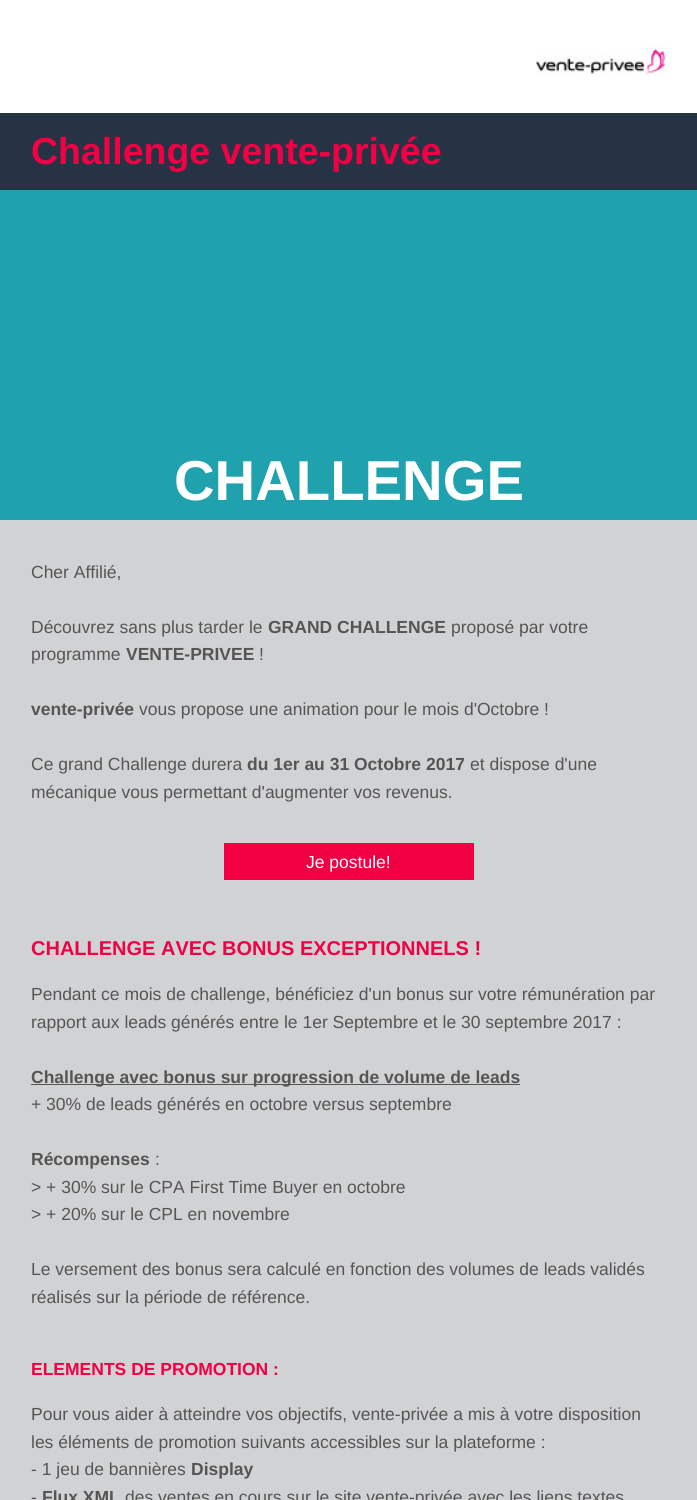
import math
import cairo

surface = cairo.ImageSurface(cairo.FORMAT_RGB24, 697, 1500)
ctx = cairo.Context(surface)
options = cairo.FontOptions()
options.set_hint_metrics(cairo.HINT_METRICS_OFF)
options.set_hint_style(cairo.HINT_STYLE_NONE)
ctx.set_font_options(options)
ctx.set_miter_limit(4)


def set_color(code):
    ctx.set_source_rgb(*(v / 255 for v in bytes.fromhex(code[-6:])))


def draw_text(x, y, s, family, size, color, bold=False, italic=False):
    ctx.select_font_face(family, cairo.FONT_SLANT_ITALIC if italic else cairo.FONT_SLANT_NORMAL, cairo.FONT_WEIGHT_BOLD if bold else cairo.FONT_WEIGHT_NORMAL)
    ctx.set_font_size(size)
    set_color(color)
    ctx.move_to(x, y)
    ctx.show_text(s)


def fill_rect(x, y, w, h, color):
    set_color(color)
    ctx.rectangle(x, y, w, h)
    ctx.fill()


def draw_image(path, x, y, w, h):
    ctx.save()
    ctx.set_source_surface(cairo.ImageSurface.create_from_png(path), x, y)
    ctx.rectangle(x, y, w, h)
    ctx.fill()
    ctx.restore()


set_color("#ffffff")
ctx.paint()
draw_image("assets/img1.png", 536, 45, 130, 30)
fill_rect(0, 113, 697, 77, "#263344")
draw_text(31, 164, "Challenge vente-privée", "Liberation Sans", 37.5, "#f00044", bold=True)
fill_rect(0, 190, 697, 330, "#20a1ae")
draw_text(174, 500, "CHALLENGE", "Liberation Sans", 56.25, "#ffffff", bold=True)
fill_rect(0, 520, 697, 980, "#d1d2d4")
draw_text(31, 578, "Cher Affilié,", "Liberation Sans", 17.5, "#555555")
draw_text(31, 633, "Découvrez sans plus tarder le", "Liberation Sans", 17.5, "#555555")
draw_text(268, 633, "GRAND CHALLENGE", "Liberation Sans", 17.5, "#555555", bold=True)
draw_text(451, 633, "proposé par votre", "Liberation Sans", 17.5, "#555555")
draw_text(31, 660, "programme", "Liberation Sans", 17.5, "#555555")
draw_text(126, 660, "VENTE-PRIVEE", "Liberation Sans", 17.5, "#555555", bold=True)
draw_text(259, 660, "!", "Liberation Sans", 17.5, "#555555")
draw_text(31, 715, "vente-privée", "Liberation Sans", 17.5, "#555555", bold=True)
draw_text(139, 715, "vous propose une animation pour le mois d'Octobre !", "Liberation Sans", 17.5, "#555555")
draw_text(31, 770, "Ce grand Challenge durera", "Liberation Sans", 17.5, "#555555")
draw_text(247, 770, "du 1er au 31 Octobre 2017", "Liberation Sans", 17.5, "#555555", bold=True)
draw_text(470, 770, "et dispose d'une", "Liberation Sans", 17.5, "#555555")
draw_text(31, 798, "mécanique vous permettant d'augmenter vos revenus.", "Liberation Sans", 17.5, "#555555")
fill_rect(224, 843, 250, 37, "#f00043")
draw_text(306, 868, "Je postule!", "Liberation Sans", 17.5, "#ffffff")
draw_text(31, 955, "CHALLENGE AVEC BONUS EXCEPTIONNELS !", "Liberation Sans", 20, "#f00044", bold=True)
draw_text(31, 1000, "Pendant ce mois de challenge, bénéficiez d'un bonus sur votre rémunération par", "Liberation Sans", 17.5, "#555555")
draw_text(31, 1028, "rapport aux leads générés entre le 1er Septembre et le 30 septembre 2017 :", "Liberation Sans", 17.5, "#555555")
fill_rect(31, 1084, 489, 1, "#555555")
draw_text(31, 1083, "Challenge avec bonus sur progression de volume de leads", "Liberation Sans", 17.5, "#555555", bold=True)
draw_text(31, 1110, "+ 30% de leads générés en octobre versus septembre", "Liberation Sans", 17.5, "#555555")
draw_text(31, 1165, "Récompenses", "Liberation Sans", 17.5, "#555555", bold=True)
draw_text(155, 1165, ":", "Liberation Sans", 17.5, "#555555")
draw_text(31, 1193, "> + 30% sur le CPA First Time Buyer en octobre", "Liberation Sans", 17.5, "#555555")
draw_text(31, 1220, "> + 20% sur le CPL en novembre", "Liberation Sans", 17.5, "#555555")
draw_text(31, 1275, "Le versement des bonus sera calculé en fonction des volumes de leads validés", "Liberation Sans", 17.5, "#555555")
draw_text(31, 1303, "réalisés sur la période de référence.", "Liberation Sans", 17.5, "#555555")
draw_text(31, 1375, "ELEMENTS DE PROMOTION :", "Liberation Sans", 17.5, "#f00044", bold=True)
draw_text(31, 1420, "Pour vous aider à atteindre vos objectifs, vente-privée a mis à votre disposition", "Liberation Sans", 17.5, "#555555")
draw_text(31, 1448, "les éléments de promotion suivants accessibles sur la plateforme :", "Liberation Sans", 17.5, "#555555")
draw_text(31, 1475, "- 1 jeu de bannières", "Liberation Sans", 17.5, "#555555")
draw_text(191, 1475, "Display", "Liberation Sans", 17.5, "#555555", bold=True)
draw_text(31, 1503, "-", "Liberation Sans", 17.5, "#555555")
draw_text(42, 1503, "Flux XML", "Liberation Sans", 17.5, "#555555", bold=True)
draw_text(125, 1503, "des ventes en cours sur le site vente-privée avec les liens textes", "Liberation Sans", 17.5, "#555555")
surface.write_to_png("output.png")
